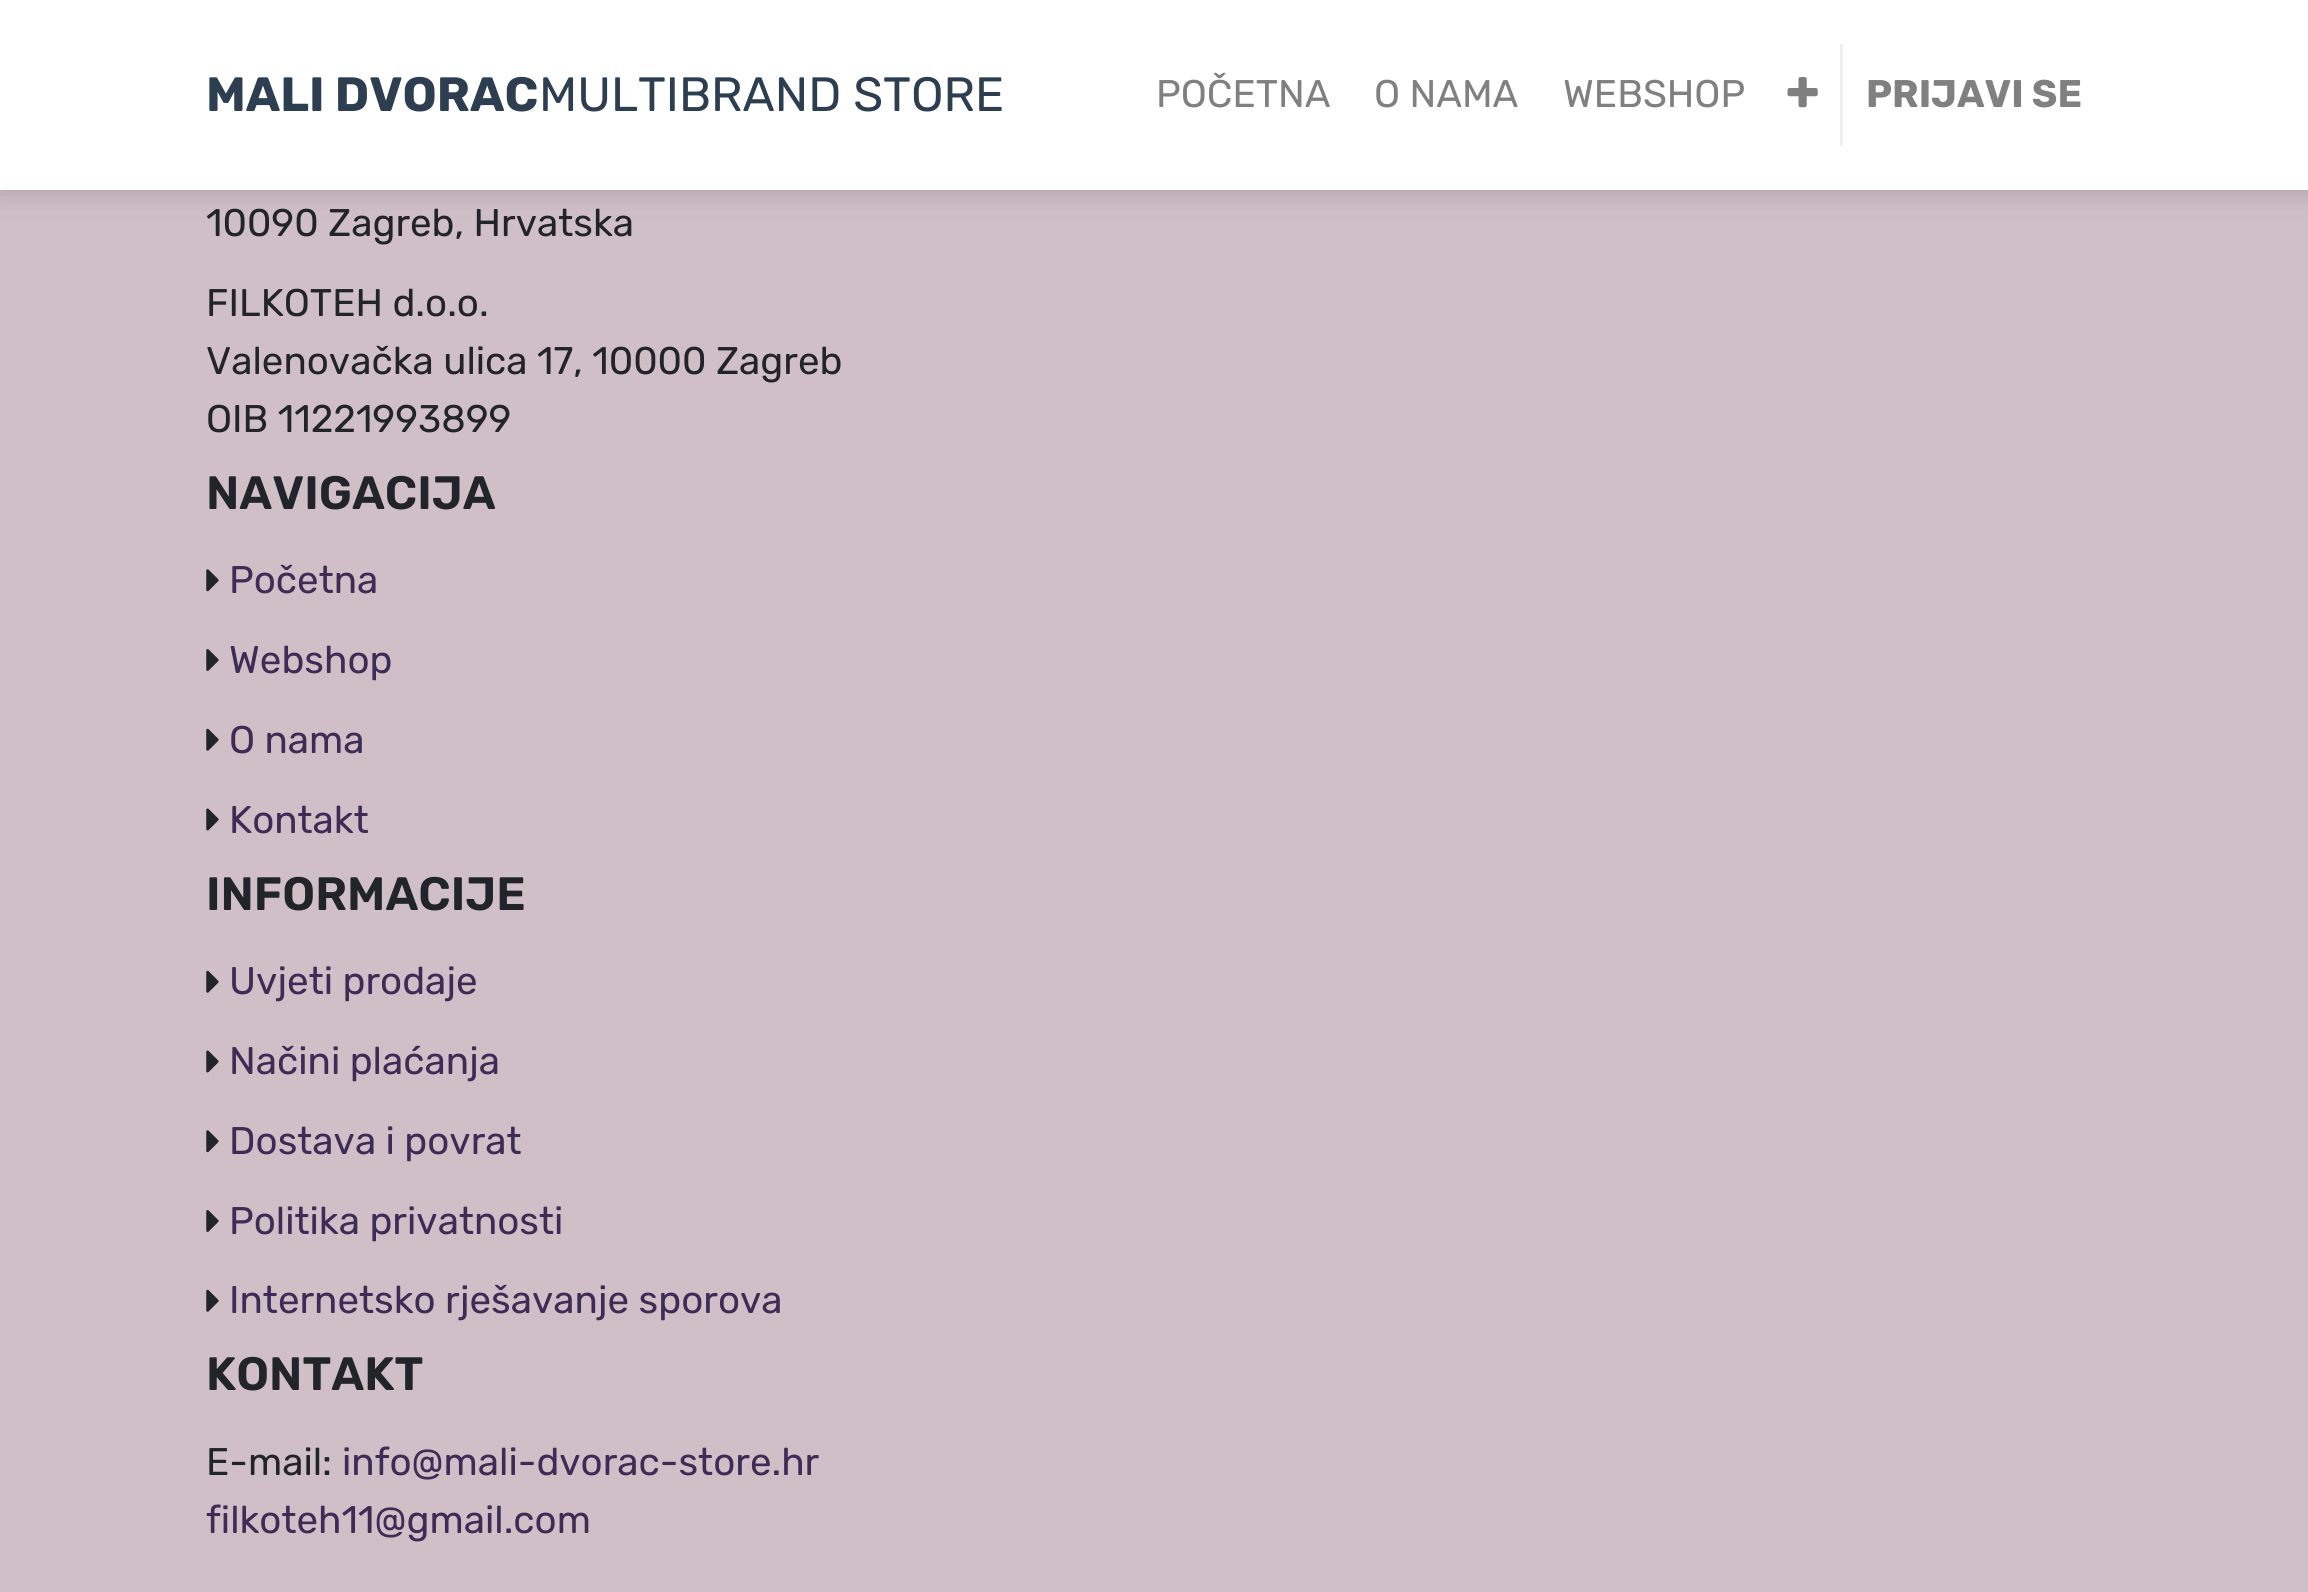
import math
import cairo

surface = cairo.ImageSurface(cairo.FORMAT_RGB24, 2308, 1592)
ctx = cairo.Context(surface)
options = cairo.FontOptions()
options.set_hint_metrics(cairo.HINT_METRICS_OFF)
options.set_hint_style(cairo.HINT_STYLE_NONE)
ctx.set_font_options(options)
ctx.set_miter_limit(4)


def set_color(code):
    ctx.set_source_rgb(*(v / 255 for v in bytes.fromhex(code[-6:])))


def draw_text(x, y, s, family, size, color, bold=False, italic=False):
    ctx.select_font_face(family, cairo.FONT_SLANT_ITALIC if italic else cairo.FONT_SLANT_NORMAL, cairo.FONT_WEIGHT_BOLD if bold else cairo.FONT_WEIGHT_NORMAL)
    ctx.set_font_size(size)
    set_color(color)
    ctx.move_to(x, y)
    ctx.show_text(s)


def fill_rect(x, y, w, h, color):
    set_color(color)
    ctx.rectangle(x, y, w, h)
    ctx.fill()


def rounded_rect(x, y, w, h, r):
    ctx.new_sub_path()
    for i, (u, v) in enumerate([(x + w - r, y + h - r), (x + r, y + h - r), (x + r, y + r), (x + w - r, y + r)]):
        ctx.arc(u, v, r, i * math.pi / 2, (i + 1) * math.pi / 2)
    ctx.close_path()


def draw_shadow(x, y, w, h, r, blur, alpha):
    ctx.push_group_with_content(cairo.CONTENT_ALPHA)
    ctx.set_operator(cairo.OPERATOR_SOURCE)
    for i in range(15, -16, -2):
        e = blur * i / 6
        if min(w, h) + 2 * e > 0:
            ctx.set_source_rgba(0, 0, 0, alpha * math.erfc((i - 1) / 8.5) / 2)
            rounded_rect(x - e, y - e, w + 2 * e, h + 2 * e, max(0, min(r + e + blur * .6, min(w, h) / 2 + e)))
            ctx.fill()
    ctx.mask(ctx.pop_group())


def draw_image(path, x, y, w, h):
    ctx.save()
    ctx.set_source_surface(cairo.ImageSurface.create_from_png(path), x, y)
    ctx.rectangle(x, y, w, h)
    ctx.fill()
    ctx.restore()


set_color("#d1bfc7")
ctx.paint()
set_color("#000000")
draw_shadow(0, 0, 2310, 190, 0, 14, 0.2)
fill_rect(0, 0, 2308, 190, "#ffffff")
draw_text(206, 111, "MALI DVORAC", "Rubik", 48.1, "#2c3e50", bold=True)
draw_text(539, 111, "MULTIBRAND STORE", "Rubik", 48.1, "#2c3e50")
draw_text(1156, 107, "POČETNA", "Rubik", 38.5, "#808080")
draw_text(1374, 107, "O NAMA", "Rubik", 38.5, "#808080")
draw_text(1563, 107, "WEBSHOP", "Rubik", 38.5, "#808080")
draw_image("assets/img1.png", 1787, 77, 31, 31)
fill_rect(1840, 44, 3, 102, "#ecf0f1")
draw_text(1866, 107, "PRIJAVI SE", "Rubik", 38.5, "#808080", bold=True)
draw_text(206, 236, "10090 Zagreb, Hrvatska", "Rubik", 38.5, "#212529")
draw_text(206, 316, "FILKOTEH d.o.o.", "Rubik", 38.5, "#212529")
draw_text(206, 374, "Valenovačka ulica 17, 10000 Zagreb", "Rubik", 38.5, "#212529")
draw_text(206, 432, "OIB 11221993899", "Rubik", 38.5, "#212529")
draw_text(206, 509, "NAVIGACIJA", "Rubik SemiBold", 46.75, "#212529")
draw_image("assets/img2.png", 206, 569, 13, 23)
draw_text(229, 593, "Početna", "Rubik", 38.5, "#3e2b56")
draw_image("assets/img3.png", 206, 649, 13, 22)
draw_text(229, 673, "Webshop", "Rubik", 38.5, "#3e2b56")
draw_image("assets/img4.png", 206, 728, 13, 23)
draw_text(229, 753, "O nama", "Rubik", 38.5, "#3e2b56")
draw_image("assets/img5.png", 206, 808, 13, 23)
draw_text(229, 833, "Kontakt", "Rubik", 38.5, "#3e2b56")
draw_text(206, 910, "INFORMACIJE", "Rubik SemiBold", 46.75, "#212529")
draw_image("assets/img4.png", 206, 970, 13, 23)
draw_text(229, 994, "Uvjeti prodaje", "Rubik", 38.5, "#3e2b56")
draw_image("assets/img5.png", 206, 1050, 13, 23)
draw_text(229, 1074, "Načini plaćanja", "Rubik", 38.5, "#3e2b56")
draw_image("assets/img2.png", 206, 1130, 13, 23)
draw_text(229, 1154, "Dostava i povrat", "Rubik", 38.5, "#3e2b56")
draw_image("assets/img3.png", 206, 1210, 13, 22)
draw_text(229, 1234, "Politika privatnosti", "Rubik", 38.5, "#3e2b56")
draw_image("assets/img4.png", 206, 1289, 13, 23)
draw_text(229, 1313, "Internetsko rješavanje sporova", "Rubik", 38.5, "#3e2b56")
draw_text(206, 1390, "KONTAKT", "Rubik SemiBold", 46.75, "#212529")
draw_text(206, 1475, "E-mail:", "Rubik", 38.5, "#212529")
draw_text(342, 1475, "info@mali-dvorac-store.hr", "Rubik", 38.5, "#3e2b56")
draw_text(206, 1533, "filkoteh11@gmail.com", "Rubik", 38.5, "#3e2b56")
surface.write_to_png("output.png")
